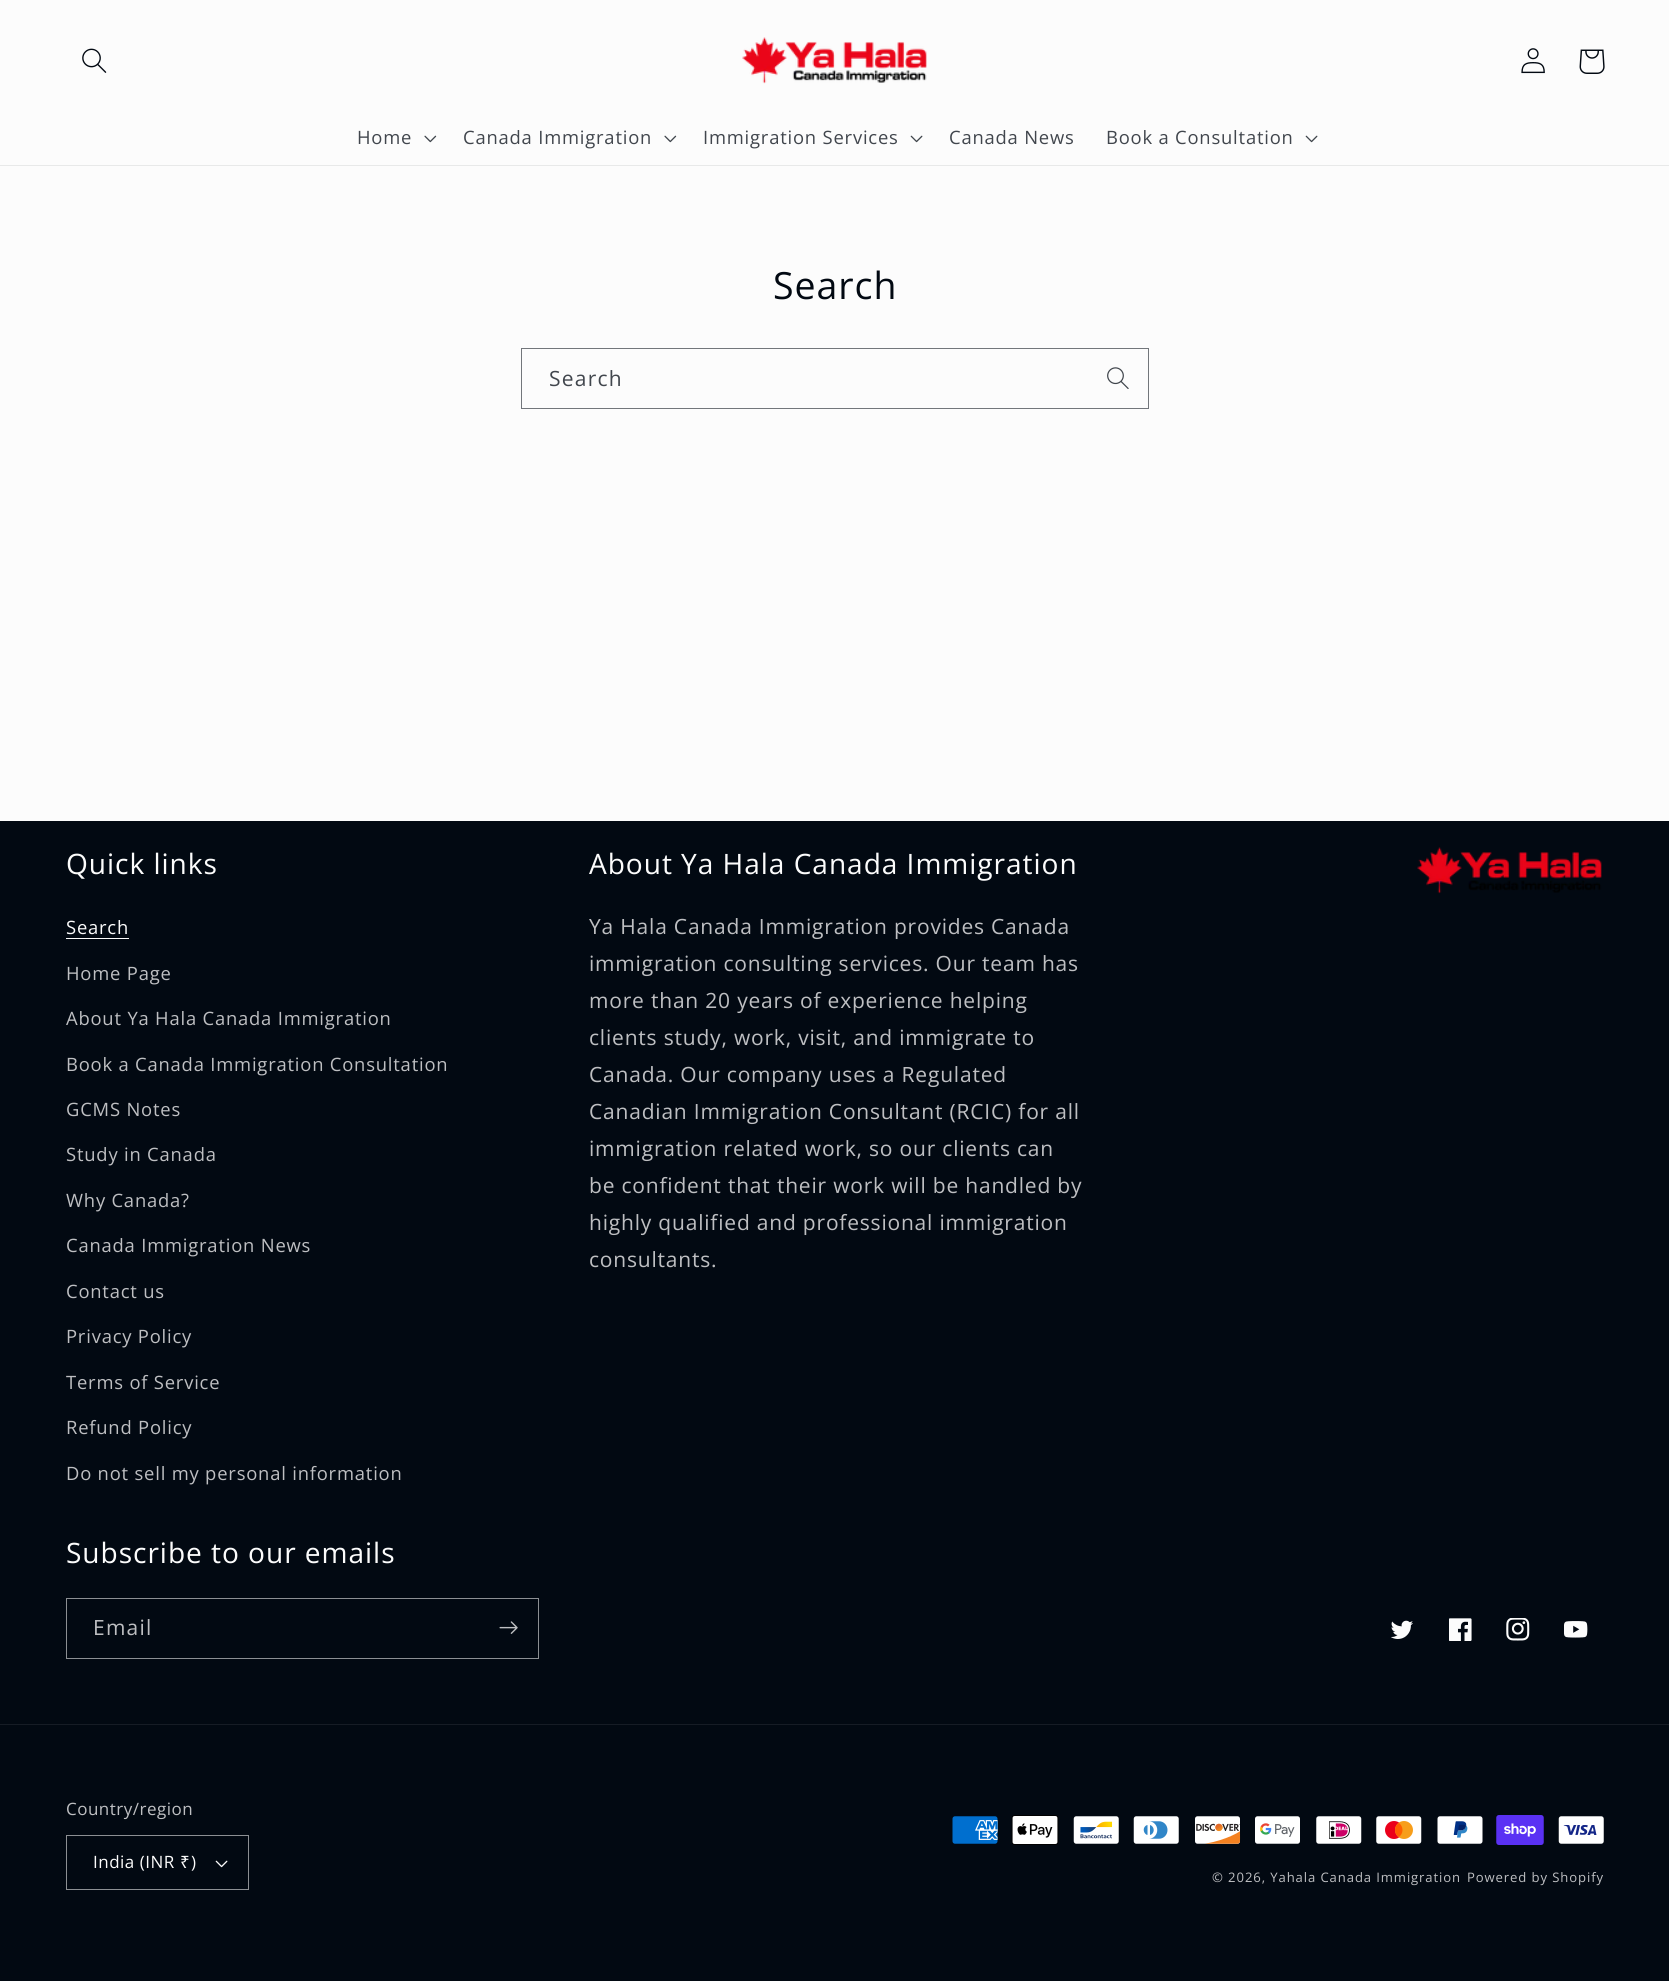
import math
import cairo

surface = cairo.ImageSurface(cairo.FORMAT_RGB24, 1669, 1981)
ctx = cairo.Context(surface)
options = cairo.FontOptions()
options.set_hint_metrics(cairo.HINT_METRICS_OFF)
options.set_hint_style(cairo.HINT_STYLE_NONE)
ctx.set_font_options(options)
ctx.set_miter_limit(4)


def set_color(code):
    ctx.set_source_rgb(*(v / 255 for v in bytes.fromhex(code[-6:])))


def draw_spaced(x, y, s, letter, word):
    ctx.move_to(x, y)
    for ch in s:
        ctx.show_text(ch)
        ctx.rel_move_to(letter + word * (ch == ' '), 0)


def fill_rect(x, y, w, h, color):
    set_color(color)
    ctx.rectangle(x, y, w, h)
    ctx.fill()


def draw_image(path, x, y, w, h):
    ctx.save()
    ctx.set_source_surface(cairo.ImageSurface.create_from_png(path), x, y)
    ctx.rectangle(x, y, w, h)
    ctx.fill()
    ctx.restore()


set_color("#fcfcfc")
ctx.paint()
fill_rect(0, 165, 1669, 1, "#e8e9e9")
draw_image("assets/img1.png", 82, 48, 25, 25)
draw_image("assets/img2.png", 742, 37, 185, 47)
draw_image("assets/img3.png", 1521, 48, 24, 26)
draw_image("assets/img4.png", 1579, 49, 26, 25)
ctx.select_font_face("Open Sans")
ctx.set_font_size(18.4)
set_color("#41464d")
draw_spaced(357, 144, "Home", 0.8, 0)
draw_image("assets/img5.png", 424, 135, 13, 8)
draw_spaced(463, 144, "Canada Immigration", 0.8, 0)
draw_image("assets/img5.png", 664, 135, 13, 8)
draw_spaced(703, 144, "Immigration Services", 0.8, 0)
draw_image("assets/img6.png", 910, 135, 13, 8)
draw_spaced(949, 144, "Canada News", 0.8, 0)
draw_spaced(1106, 144, "Book a Consultation", 0.8, 0)
draw_image("assets/img6.png", 1305, 135, 13, 8)
ctx.set_font_size(37.5)
set_color("#020912")
draw_spaced(773, 299, "Search", 0.95, 0)
draw_image("assets/img7.png", 1107, 367, 22, 22)
ctx.rectangle(521.5, 348.5, 627, 60)
set_color("#72767b")
ctx.set_line_width(1)
ctx.stroke()
ctx.set_font_size(21)
set_color("#41464d")
draw_spaced(549, 386, "Search", 1.25, 0)
fill_rect(0, 821, 1669, 1160, "#020912")
ctx.set_font_size(28.1)
set_color("#fcfcfc")
draw_spaced(66, 874, "Quick links", 0.95, 0)
ctx.set_font_size(18.4)
draw_spaced(66, 934, "Search", 0.8, 0)
fill_rect(66, 938, 63, 1, "#fcfcfc")
set_color("#bebfc2")
draw_spaced(66, 980, "Home Page", 0.8, 0)
draw_spaced(66, 1025, "About Ya Hala Canada Immigration", 0.8, 0)
draw_spaced(66, 1071, "Book a Canada Immigration Consultation", 0.8, 0)
draw_spaced(66, 1116, "GCMS Notes", 0.8, 0)
draw_spaced(66, 1161, "Study in Canada", 0.8, 0)
draw_spaced(66, 1207, "Why Canada?", 0.8, 0)
draw_spaced(66, 1252, "Canada Immigration News", 0.8, 0)
draw_spaced(66, 1298, "Contact us", 0.8, 0)
draw_spaced(66, 1343, "Privacy Policy", 0.8, 0)
draw_spaced(66, 1389, "Terms of Service", 0.8, 0)
draw_spaced(66, 1434, "Refund Policy", 0.8, 0)
draw_spaced(66, 1480, "Do not sell my personal information", 0.8, 0)
ctx.set_font_size(28.1)
set_color("#fcfcfc")
draw_spaced(589, 874, "About Ya Hala Canada Immigration", 0.95, 0)
ctx.set_font_size(21)
set_color("#bebfc2")
draw_spaced(589, 934, "Ya Hala Canada Immigration provides Canada", 0.8, 0)
draw_spaced(589, 971, "immigration consulting services. Our team has", 0.8, 0)
draw_spaced(589, 1008, "more than 20 years of experience helping", 0.8, 0)
draw_spaced(589, 1045, "clients study, work, visit, and immigrate to", 0.8, 0)
draw_spaced(589, 1082, "Canada. Our company uses a Regulated", 0.8, 0)
draw_spaced(589, 1119, "Canadian Immigration Consultant (RCIC) for all", 0.8, 0)
draw_spaced(589, 1156, "immigration related work, so our clients can", 0.8, 0)
draw_spaced(589, 1193, "be confident that their work will be handled by", 0.8, 0)
draw_spaced(589, 1230, "highly qualified and professional immigration", 0.8, 0)
draw_spaced(589, 1267, "consultants.", 0.8, 0)
draw_image("assets/img8.png", 1417, 847, 185, 47)
ctx.set_font_size(28.1)
set_color("#fcfcfc")
draw_spaced(66, 1563, "Subscribe to our emails", 0.95, 0)
ctx.rectangle(66.5, 1598.5, 472, 60)
set_color("#8c8f93")
ctx.stroke()
ctx.set_font_size(21)
set_color("#bebfc2")
draw_spaced(93, 1635, "Email", 1.25, 0)
draw_image("assets/img9.png", 499, 1621, 19, 13)
draw_image("assets/img10.png", 1391, 1620, 22, 19)
draw_image("assets/img11.png", 1449, 1618, 23, 23)
draw_image("assets/img12.png", 1506, 1618, 24, 23)
draw_image("assets/img13.png", 1564, 1621, 24, 17)
fill_rect(0, 1724, 1669, 1, "#161c25")
ctx.set_font_size(17)
set_color("#bebfc2")
draw_spaced(66, 1815, "Country/region", 0.5, 0)
draw_image("assets/img14.png", 215, 1860, 13, 8)
ctx.rectangle(66.5, 1835.5, 182, 54)
set_color("#8c8f93")
ctx.stroke()
set_color("#fcfcfc")
draw_spaced(93, 1868, "India (INR", 0.5, 0)
ctx.select_font_face("Noto Sans")
draw_spaced(180, 1868, "₹", 0.5, 0)
ctx.select_font_face("Open Sans")
draw_spaced(191, 1868, ")", 0.5, 0)
draw_image("assets/img15.png", 952, 1816, 46, 28)
draw_image("assets/img16.png", 1011, 1815, 48, 30)
draw_image("assets/img17.png", 1073, 1816, 46, 28)
draw_image("assets/img18.png", 1133, 1816, 46, 28)
draw_image("assets/img19.png", 1195, 1816, 46, 28)
draw_image("assets/img20.png", 1255, 1816, 45, 28)
draw_image("assets/img21.png", 1316, 1816, 46, 28)
draw_image("assets/img22.png", 1376, 1816, 46, 28)
draw_image("assets/img23.png", 1437, 1816, 46, 28)
draw_image("assets/img24.png", 1496, 1815, 48, 30)
draw_image("assets/img25.png", 1558, 1816, 46, 28)
ctx.set_font_size(13.1)
set_color("#bebfc2")
draw_spaced(1212, 1882, "© 2026, Yahala Canada Immigration", 0.9, 0)
draw_spaced(1467, 1882, "Powered by Shopify", 0.9, 0)
surface.write_to_png("output.png")
